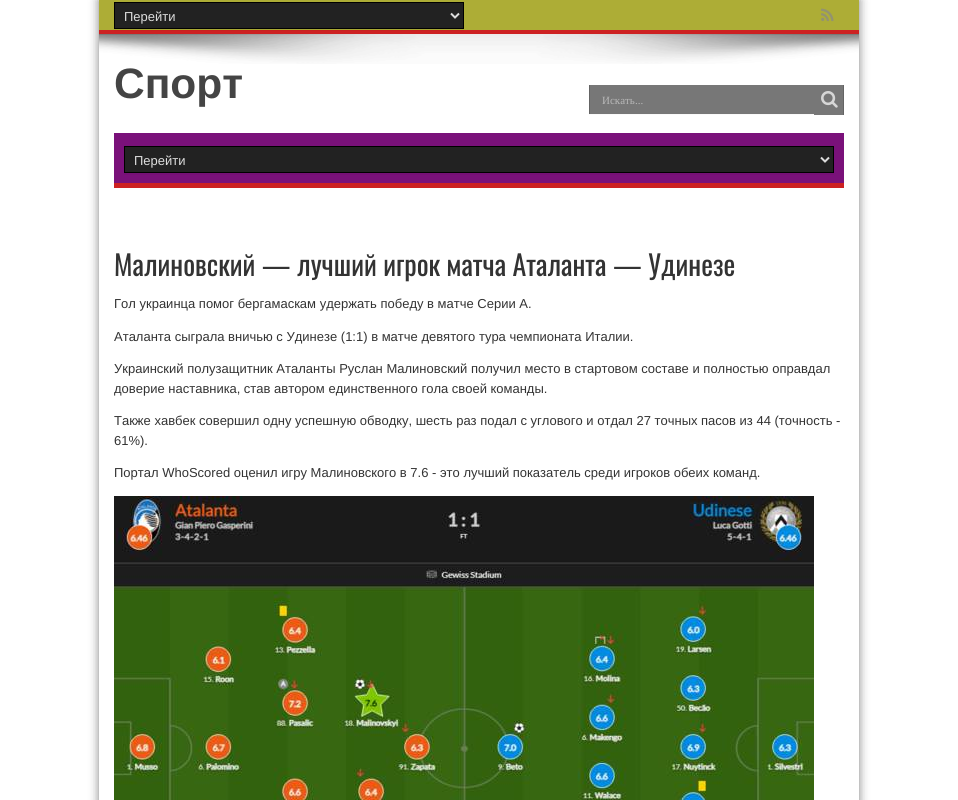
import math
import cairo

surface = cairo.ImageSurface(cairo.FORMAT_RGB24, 958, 800)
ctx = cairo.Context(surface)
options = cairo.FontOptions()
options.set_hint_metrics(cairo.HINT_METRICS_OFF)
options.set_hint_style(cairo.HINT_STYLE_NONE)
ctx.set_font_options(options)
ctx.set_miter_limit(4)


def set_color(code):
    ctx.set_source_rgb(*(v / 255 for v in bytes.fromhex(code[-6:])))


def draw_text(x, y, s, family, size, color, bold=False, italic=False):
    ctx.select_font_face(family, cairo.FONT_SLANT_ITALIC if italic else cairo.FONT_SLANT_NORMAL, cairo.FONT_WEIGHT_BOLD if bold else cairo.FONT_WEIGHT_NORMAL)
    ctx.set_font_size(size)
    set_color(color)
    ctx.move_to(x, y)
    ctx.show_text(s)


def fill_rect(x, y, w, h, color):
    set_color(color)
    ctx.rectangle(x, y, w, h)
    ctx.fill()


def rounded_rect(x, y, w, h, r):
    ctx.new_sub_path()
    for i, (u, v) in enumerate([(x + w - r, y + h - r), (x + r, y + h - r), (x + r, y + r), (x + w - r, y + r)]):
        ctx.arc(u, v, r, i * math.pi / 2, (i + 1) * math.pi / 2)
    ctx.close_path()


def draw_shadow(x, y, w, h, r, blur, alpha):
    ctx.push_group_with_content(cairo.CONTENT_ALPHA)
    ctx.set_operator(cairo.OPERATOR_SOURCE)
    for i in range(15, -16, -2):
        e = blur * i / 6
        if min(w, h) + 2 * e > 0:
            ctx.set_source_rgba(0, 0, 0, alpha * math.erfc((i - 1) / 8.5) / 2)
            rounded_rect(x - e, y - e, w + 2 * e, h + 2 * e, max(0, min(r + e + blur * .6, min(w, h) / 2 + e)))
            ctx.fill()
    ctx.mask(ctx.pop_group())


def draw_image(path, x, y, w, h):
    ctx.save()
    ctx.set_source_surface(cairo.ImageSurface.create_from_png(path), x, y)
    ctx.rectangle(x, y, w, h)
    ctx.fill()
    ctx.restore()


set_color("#ffffff")
ctx.paint()
ctx.save()
ctx.set_fill_rule(cairo.FILL_RULE_EVEN_ODD)
ctx.new_path()
ctx.move_to(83, 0)
ctx.line_to(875, 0)
ctx.line_to(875, 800)
ctx.line_to(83, 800)
ctx.close_path()
ctx.move_to(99, 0)
ctx.line_to(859, 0)
ctx.line_to(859, 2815)
ctx.line_to(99, 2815)
ctx.close_path()
ctx.clip()
set_color("#000000")
draw_shadow(99, 0, 760, 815, 0, 5, 0.5)
ctx.restore()
fill_rect(99, 0, 760, 30, "#adad36")
fill_rect(114, 29, 350, 1, "#a8a834")
fill_rect(99, 30, 760, 4, "#cd2122")
fill_rect(114, 30, 350, 1, "#c72021")
set_color("#222222")
ctx.rectangle(114.5, 2.5, 349, 26)
ctx.fill_preserve()
set_color("#000000")
ctx.set_line_width(1)
ctx.stroke()
ctx.new_path()
ctx.move_to(451, 13.5)
ctx.line_to(455, 17.5)
ctx.line_to(459, 13.5)
set_color("#dddddd")
ctx.set_line_width(2)
ctx.stroke()
draw_text(124, 21, "Перейти", "Liberation Sans", 13, "#dddddd")
draw_image("assets/img1.png", 821, 8, 13, 14)
fill_rect(589, 114, 225, 1, "#fafafa")
fill_rect(590, 85, 224, 29, "#777777")
fill_rect(589, 85, 1, 29, "#646464")
draw_text(602, 104, "Искать...", "Liberation Serif", 11, "#b8b8b8")
fill_rect(814, 85, 29, 30, "#777777")
fill_rect(843, 85, 1, 30, "#646464")
draw_image("assets/img2.png", 821, 91, 17, 17)
draw_image("assets/img3.png", 99, 34, 760, 30)
draw_text(114, 98, "Спорт", "Liberation Sans", 42.5, "#444444", bold=True)
fill_rect(114, 133, 730, 50, "#7a117a")
fill_rect(114, 183, 730, 5, "#cd2122")
fill_rect(124, 173, 710, 2, "#761076")
set_color("#222222")
ctx.rectangle(124.5, 146.5, 709, 26)
ctx.fill_preserve()
set_color("#000000")
ctx.set_line_width(1)
ctx.stroke()
ctx.new_path()
ctx.move_to(821, 157.5)
ctx.line_to(825, 161.5)
ctx.line_to(829, 157.5)
set_color("#dddddd")
ctx.set_line_width(2)
ctx.stroke()
draw_text(134, 165, "Перейти", "Liberation Sans", 13, "#dddddd")
draw_text(114, 276, "Малиновский — лучший игрок матча Аталанта — Удинезе", "Oswald", 28, "#333333")
draw_text(114, 308, "Гол украинца помог бергамаскам удержать победу в матче Серии А.", "Liberation Sans", 13, "#333333")
draw_text(114, 341, "Аталанта сыграла вничью с Удинезе (1:1) в матче девятого тура чемпионата Италии.", "Liberation Sans", 13, "#333333")
draw_text(114, 373, "Украинский полузащитник Аталанты Руслан Малиновский получил место в стартовом составе и полностью оправдал", "Liberation Sans", 13, "#333333")
draw_text(114, 393, "доверие наставника, став автором единственного гола своей команды.", "Liberation Sans", 13, "#333333")
draw_text(114, 425, "Также хавбек совершил одну успешную обводку, шесть раз подал с углового и отдал 27 точных пасов из 44 (точность -", "Liberation Sans", 13, "#333333")
draw_text(114, 445, "61%).", "Liberation Sans", 13, "#333333")
draw_text(114, 477, "Портал WhoScored оценил игру Малиновского в 7.6 - это лучший показатель среди игроков обеих команд.", "Liberation Sans", 13, "#333333")
draw_image("assets/img4.png", 114, 496, 700, 304)
surface.write_to_png("output.png")
